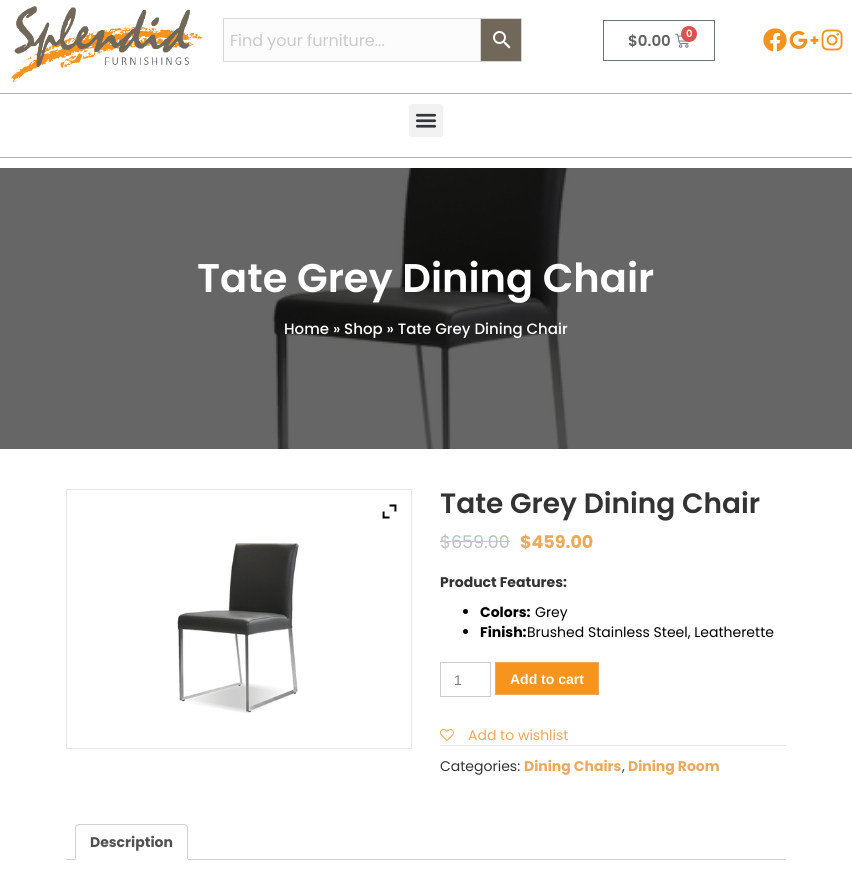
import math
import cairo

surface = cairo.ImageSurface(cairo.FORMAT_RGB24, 852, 874)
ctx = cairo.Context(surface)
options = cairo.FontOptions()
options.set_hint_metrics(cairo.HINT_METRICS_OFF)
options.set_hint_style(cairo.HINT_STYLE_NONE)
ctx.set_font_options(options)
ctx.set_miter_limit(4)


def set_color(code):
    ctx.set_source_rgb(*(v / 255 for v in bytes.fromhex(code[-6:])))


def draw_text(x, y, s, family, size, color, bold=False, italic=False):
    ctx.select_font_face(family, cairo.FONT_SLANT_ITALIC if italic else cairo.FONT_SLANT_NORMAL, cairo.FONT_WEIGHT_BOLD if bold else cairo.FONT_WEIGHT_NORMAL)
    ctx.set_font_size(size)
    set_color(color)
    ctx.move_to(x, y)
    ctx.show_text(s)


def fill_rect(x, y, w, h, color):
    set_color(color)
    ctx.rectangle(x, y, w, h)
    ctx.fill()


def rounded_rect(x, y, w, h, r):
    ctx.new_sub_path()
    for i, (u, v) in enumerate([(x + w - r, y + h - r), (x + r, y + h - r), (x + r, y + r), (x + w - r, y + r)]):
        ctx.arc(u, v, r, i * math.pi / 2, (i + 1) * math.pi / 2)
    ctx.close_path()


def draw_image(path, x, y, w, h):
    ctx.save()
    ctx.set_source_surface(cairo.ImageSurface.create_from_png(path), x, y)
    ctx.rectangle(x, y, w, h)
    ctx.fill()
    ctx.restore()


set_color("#ffffff")
ctx.paint()
fill_rect(0, 168, 852, 281, "#666666")
draw_image("assets/img1.png", 11, 6, 192, 77)
set_color("#71685a")
ctx.rectangle(480.5, 18.5, 41, 43)
ctx.fill_preserve()
set_color("#d8d8d8")
ctx.set_line_width(1)
ctx.stroke()
set_color("#fcfcfc")
ctx.rectangle(223.5, 18.5, 257, 43)
ctx.fill_preserve()
set_color("#d8d8d8")
ctx.stroke()
draw_text(230, 46, "Find your furniture...", "Poppins", 16, "#cacaca")
draw_image("assets/img2.png", 493, 31, 18, 18)
ctx.rectangle(603.5, 20.5, 111, 40)
set_color("#69727d")
ctx.stroke()
draw_image("assets/img3.png", 675, 33, 14, 15)
set_color("#d9534f")
ctx.arc(689, 34, 8, 0, 2 * math.pi)
ctx.fill()
draw_text(686, 37, "0", "Poppins SemiBold", 10, "#ffffff")
draw_text(628, 46, "$0.00", "Poppins SemiBold", 15, "#636161")
draw_image("assets/img4.png", 763, 28, 24, 24)
draw_image("assets/img5.png", 789, 31, 30, 18)
draw_image("assets/img6.png", 821, 29, 22, 22)
fill_rect(0, 93, 852, 1, "#b3b3b3")
fill_rect(0, 157, 852, 1, "#b3b3b3")
set_color("#f2f2f2")
rounded_rect(409, 104, 34, 33, 3)
ctx.fill()
draw_image("assets/img7.png", 415, 113, 22, 15)
draw_image("assets/img8.png", 272, 168, 297, 281)
draw_text(197, 292, "Tate Grey Dining Chair", "Poppins SemiBold", 40, "#ffffff")
draw_text(284, 334, "Home » Shop » Tate Grey Dining Chair", "Poppins Medium", 15, "#ffffff")
ctx.rectangle(66.5, 489.5, 345, 259)
set_color("#e6e6e6")
ctx.stroke()
draw_image("assets/img9.png", 177, 543, 122, 171)
draw_image("assets/img10.png", 382, 504, 15, 15)
draw_text(440, 513, "Tate Grey Dining Chair", "Poppins SemiBold", 28, "#333333")
draw_text(440, 548, "$659.00", "Poppins", 17.5, "#c0c0c0")
fill_rect(440, 541, 70, 1, "#bbd2b2")
draw_text(520, 548, "$459.00", "Poppins", 17.5, "#eba95c", bold=True)
draw_text(440, 587, "Product Features:", "Poppins", 14, "#333333", bold=True)
set_color("#000000")
ctx.new_path()
ctx.arc(465.5, 611.5, 2.5, 0, 2 * math.pi)
ctx.fill()
draw_text(480, 617, "Colors:", "Poppins", 14, "#000000", bold=True)
draw_text(535, 617, "Grey", "Poppins", 14, "#000000")
ctx.new_path()
ctx.arc(465.5, 631.5, 2.5, 0, 2 * math.pi)
ctx.fill()
draw_text(480, 637, "Finish:", "Poppins", 14, "#000000", bold=True)
draw_text(527, 637, "Brushed Stainless Steel, Leatherette", "Poppins", 14, "#000000")
ctx.rectangle(440.5, 662.5, 50, 34)
set_color("#cccccc")
ctx.stroke()
draw_text(454, 685, "1", "Liberation Sans", 14, "#808080")
set_color("#f7941d")
ctx.rectangle(495.5, 662.5, 103, 32)
ctx.fill_preserve()
set_color("#eba95c")
ctx.stroke()
draw_text(510, 684, "Add to cart", "Liberation Sans", 14, "#ffffff", bold=True)
draw_image("assets/img11.png", 440, 729, 14, 12)
draw_text(468, 740, "Add to wishlist", "Poppins", 14, "#eba95c")
fill_rect(440, 745, 346, 1, "#e6e6e6")
draw_text(440, 771, "Categories:", "Poppins", 14, "#333333")
draw_text(524, 771, "Dining Chairs", "Poppins", 14, "#eba95c", bold=True)
draw_text(622, 771, ",", "Poppins", 14, "#333333")
draw_text(628, 771, "Dining Room", "Poppins", 14, "#eba95c", bold=True)
fill_rect(66, 859, 720, 1, "#d3ced2")
set_color("#ffffff")
ctx.new_path()
ctx.move_to(79, 824)
ctx.line_to(184, 824)
ctx.curve_to(186, 824, 188, 826, 188, 828)
ctx.line_to(188, 860)
ctx.line_to(75, 860)
ctx.line_to(75, 828)
ctx.curve_to(75, 826, 77, 824, 79, 824)
ctx.close_path()
ctx.fill()
set_color("#d3ced2")
ctx.new_path()
ctx.move_to(79, 824)
ctx.line_to(76, 825)
ctx.line_to(77, 826)
ctx.line_to(79, 825)
ctx.line_to(184, 825)
ctx.line_to(186, 826)
ctx.line_to(187, 825)
ctx.line_to(184, 824)
ctx.close_path()
ctx.fill()
ctx.new_path()
ctx.move_to(188, 860)
ctx.line_to(188, 828)
ctx.curve_to(188, 827, 187.5, 826, 187, 825)
ctx.line_to(186, 826)
ctx.curve_to(187, 826, 187, 827, 187, 828)
ctx.line_to(187, 859)
ctx.close_path()
ctx.fill()
set_color("#ffffff")
ctx.new_path()
ctx.move_to(188, 860)
ctx.line_to(187, 859)
ctx.line_to(76, 859)
ctx.line_to(75, 860)
ctx.close_path()
ctx.fill()
set_color("#d3ced2")
ctx.new_path()
ctx.move_to(75, 860)
ctx.line_to(76, 859)
ctx.line_to(76, 828)
ctx.curve_to(76, 827, 76, 826, 77, 826)
ctx.line_to(76, 825)
ctx.curve_to(75.5, 826, 75, 827, 75, 828)
ctx.close_path()
ctx.fill()
draw_text(90, 847, "Description", "Poppins", 14, "#515151", bold=True)
surface.write_to_png("output.png")
